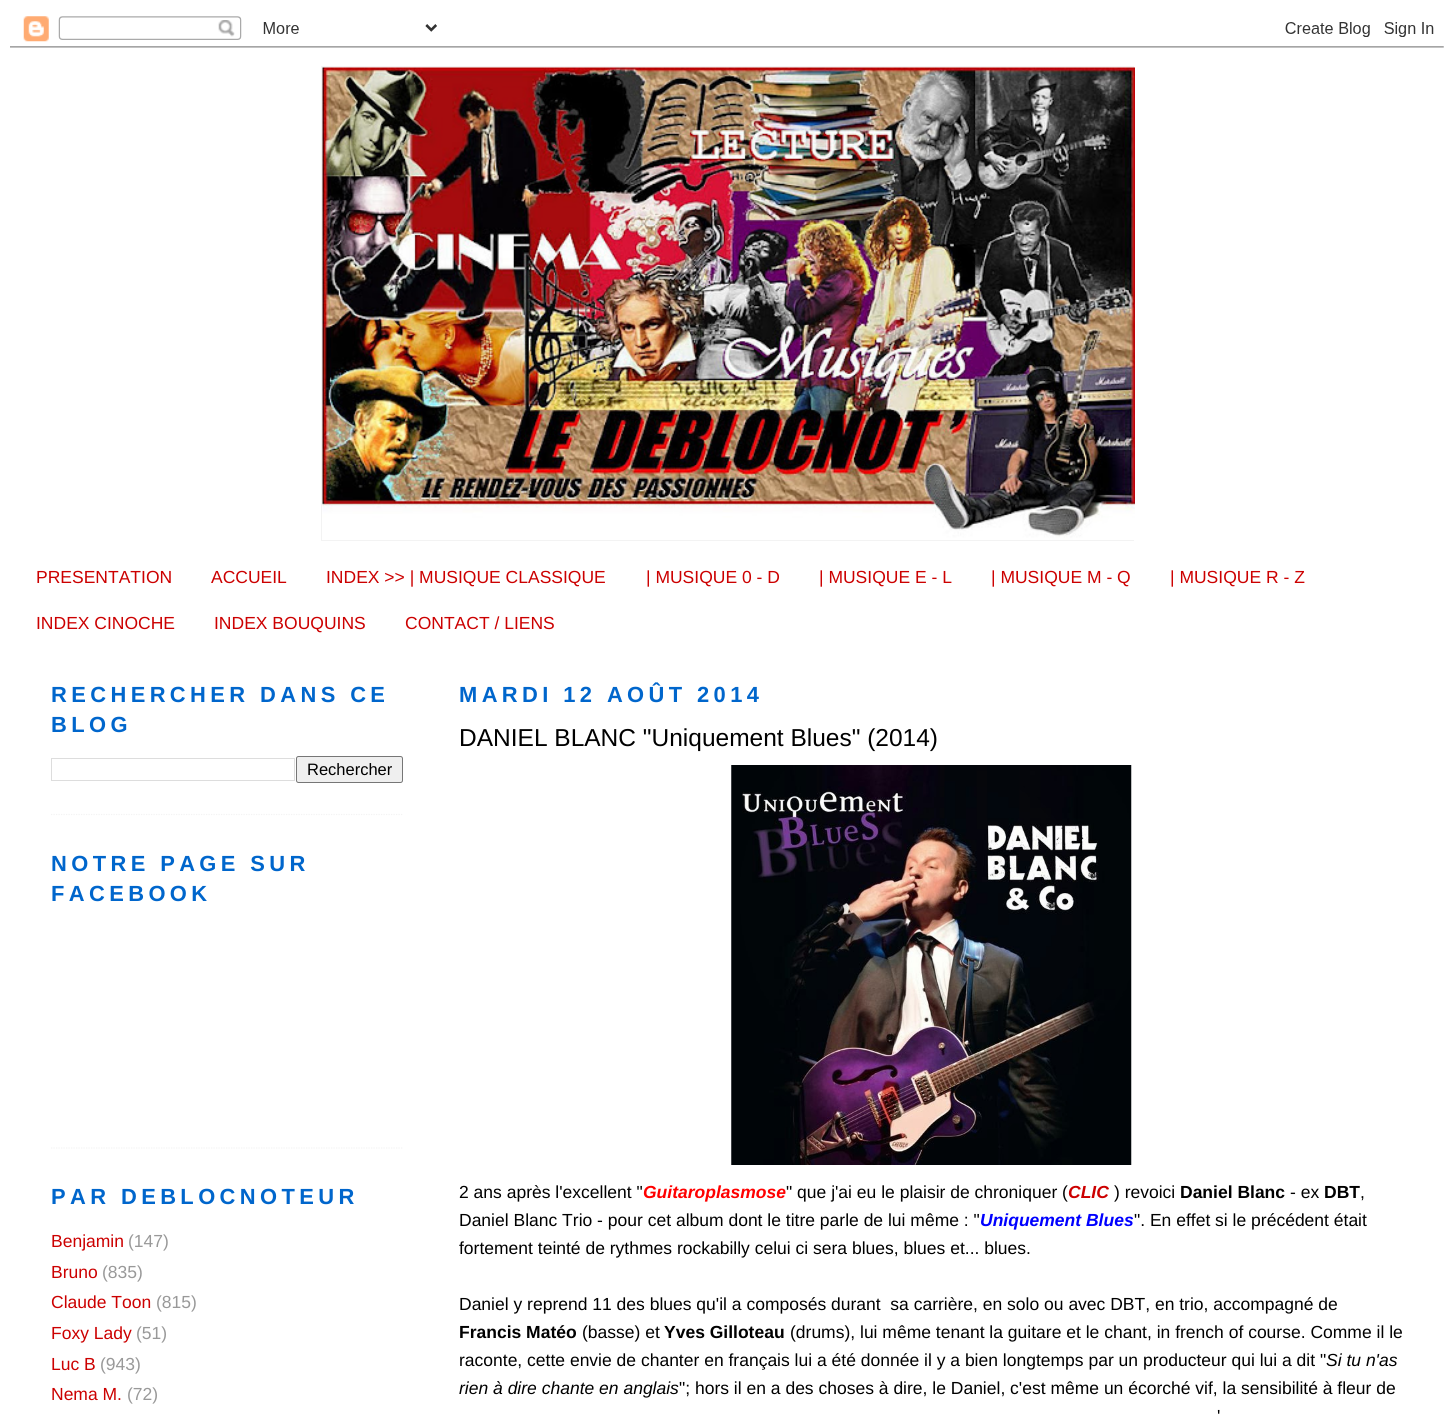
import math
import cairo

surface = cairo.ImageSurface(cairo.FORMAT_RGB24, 1453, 1416)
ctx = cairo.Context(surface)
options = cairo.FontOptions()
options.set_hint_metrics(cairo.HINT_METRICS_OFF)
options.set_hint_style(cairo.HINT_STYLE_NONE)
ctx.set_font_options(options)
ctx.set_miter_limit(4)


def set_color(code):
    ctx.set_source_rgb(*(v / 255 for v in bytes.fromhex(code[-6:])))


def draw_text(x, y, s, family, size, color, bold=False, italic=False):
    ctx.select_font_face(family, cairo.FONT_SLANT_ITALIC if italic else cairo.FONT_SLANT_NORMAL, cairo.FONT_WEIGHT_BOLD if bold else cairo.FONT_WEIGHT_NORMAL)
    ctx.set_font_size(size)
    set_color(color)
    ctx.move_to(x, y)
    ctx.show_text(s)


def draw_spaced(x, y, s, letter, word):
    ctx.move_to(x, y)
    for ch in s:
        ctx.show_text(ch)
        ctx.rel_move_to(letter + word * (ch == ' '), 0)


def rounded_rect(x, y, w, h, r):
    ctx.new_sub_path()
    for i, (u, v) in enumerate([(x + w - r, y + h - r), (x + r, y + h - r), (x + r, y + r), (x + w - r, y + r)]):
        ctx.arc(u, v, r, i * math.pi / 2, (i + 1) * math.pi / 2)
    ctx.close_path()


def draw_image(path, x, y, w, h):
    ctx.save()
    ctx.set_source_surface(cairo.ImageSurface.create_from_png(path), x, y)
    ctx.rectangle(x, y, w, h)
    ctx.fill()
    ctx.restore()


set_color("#ffffff")
ctx.paint()
draw_image("assets/img1.png", 10, 16, 1434, 32)
ctx.rectangle(321.5, 66.5, 812, 474)
set_color("#f3f3f3")
ctx.set_line_width(1)
ctx.stroke()
draw_image("assets/img2.png", 322, 67, 813, 473)
draw_text(36, 583, "PRESENTATION", "Liberation Sans", 17.5, "#cc0000")
draw_text(211, 583, "ACCUEIL", "Liberation Sans", 17.5, "#cc0000")
draw_text(326, 583, "INDEX >> | MUSIQUE CLASSIQUE", "Liberation Sans", 17.5, "#cc0000")
draw_text(646, 583, "| MUSIQUE 0 - D", "Liberation Sans", 17.5, "#cc0000")
draw_text(819, 583, "| MUSIQUE E - L", "Liberation Sans", 17.5, "#cc0000")
draw_text(991, 583, "| MUSIQUE M - Q", "Liberation Sans", 17.5, "#cc0000")
draw_text(1170, 583, "| MUSIQUE R - Z", "Liberation Sans", 17.5, "#cc0000")
draw_text(36, 629, "INDEX CINOCHE", "Liberation Sans", 17.5, "#cc0000")
draw_text(214, 629, "INDEX BOUQUINS", "Liberation Sans", 17.5, "#cc0000")
draw_text(405, 629, "CONTACT / LIENS", "Liberation Sans", 17.5, "#cc0000")
ctx.new_path()
ctx.move_to(51, 814.5)
ctx.line_to(402.5, 814.5)
set_color("#f3f3f3")
ctx.set_line_width(1.2)
ctx.set_dash([1.25, 1.25])
ctx.stroke()
ctx.select_font_face("Liberation Sans", cairo.FONT_SLANT_NORMAL, cairo.FONT_WEIGHT_BOLD)
ctx.set_font_size(21.9)
set_color("#0066cc")
draw_spaced(51, 702, "RECHERCHER DANS CE", 4.4, 0)
draw_spaced(51, 732, "BLOG", 4.4, 0)
ctx.rectangle(51.5, 758.5, 243, 22)
set_color("#dddddd")
ctx.set_line_width(1)
ctx.set_dash([])
ctx.stroke()
set_color("#efefef")
rounded_rect(296.5, 756.5, 106, 26, 2)
ctx.fill_preserve()
set_color("#767676")
ctx.stroke()
draw_text(307, 775, "Rechercher", "Liberation Sans", 16.5, "#000000")
ctx.new_path()
ctx.move_to(51, 1148)
ctx.line_to(402.5, 1148)
set_color("#f3f3f3")
ctx.set_line_width(1.2)
ctx.set_dash([1.25, 1.25])
ctx.stroke()
ctx.select_font_face("Liberation Sans", cairo.FONT_SLANT_NORMAL, cairo.FONT_WEIGHT_BOLD)
ctx.set_font_size(21.9)
set_color("#0066cc")
draw_spaced(51, 871, "NOTRE PAGE SUR", 4.4, 0)
draw_spaced(51, 901, "FACEBOOK", 4.4, 0)
draw_spaced(51, 1204, "PAR DEBLOCNOTEUR", 4.4, 0)
draw_text(51, 1247, "Benjamin", "Liberation Sans", 17.5, "#cc0000")
draw_text(128, 1247, "(147)", "Liberation Sans", 17.5, "#999999")
draw_text(51, 1278, "Bruno", "Liberation Sans", 17.5, "#cc0000")
draw_text(102, 1278, "(835)", "Liberation Sans", 17.5, "#999999")
draw_text(51, 1308, "Claude Toon", "Liberation Sans", 17.5, "#cc0000")
draw_text(156, 1308, "(815)", "Liberation Sans", 17.5, "#999999")
draw_text(51, 1339, "Foxy Lady", "Liberation Sans", 17.5, "#cc0000")
draw_text(136, 1339, "(51)", "Liberation Sans", 17.5, "#999999")
draw_text(51, 1370, "Luc B", "Liberation Sans", 17.5, "#cc0000")
draw_text(100, 1370, "(943)", "Liberation Sans", 17.5, "#999999")
draw_text(51, 1400, "Nema M.", "Liberation Sans", 17.5, "#cc0000")
draw_text(127, 1400, "(72)", "Liberation Sans", 17.5, "#999999")
ctx.select_font_face("Liberation Sans", cairo.FONT_SLANT_NORMAL, cairo.FONT_WEIGHT_BOLD)
ctx.set_font_size(21.9)
set_color("#0066cc")
draw_spaced(459, 702, "MARDI 12 AOÛT 2014", 4.4, 0)
draw_text(459, 746, "DANIEL BLANC \"Uniquement Blues\" (2014)", "Liberation Sans", 24.5, "#000000")
draw_image("assets/img3.png", 731, 765, 401, 400)
draw_text(459, 1198, "2 ans après l'excellent \"", "Liberation Sans", 17.5, "#000000")
draw_text(643, 1198, "Guitaroplasmose", "Liberation Sans", 17.5, "#ff0000", bold=True, italic=True)
draw_text(786, 1198, "\" que j'ai eu le plaisir de chroniquer (", "Liberation Sans", 17.5, "#000000")
draw_text(1068, 1198, "CLIC", "Liberation Sans", 17.5, "#cc0000", bold=True, italic=True)
draw_text(1114, 1198, ") revoici", "Liberation Sans", 17.5, "#000000")
draw_text(1180, 1198, "Daniel Blanc", "Liberation Sans", 17.5, "#000000", bold=True)
draw_text(1290, 1198, "- ex", "Liberation Sans", 17.5, "#000000")
draw_text(1324, 1198, "DBT", "Liberation Sans", 17.5, "#000000", bold=True)
draw_text(1360, 1198, ",", "Liberation Sans", 17.5, "#000000")
draw_text(459, 1226, "Daniel Blanc Trio - pour cet album dont le titre parle de lui même : \"", "Liberation Sans", 17.5, "#000000")
draw_text(980, 1226, "Uniquement Blues", "Liberation Sans", 17.5, "#0000ff", bold=True, italic=True)
draw_text(1134, 1226, "\". En effet si le précédent était", "Liberation Sans", 17.5, "#000000")
draw_text(459, 1254, "fortement teinté de rythmes rockabilly celui ci sera blues, blues et... blues.", "Liberation Sans", 17.5, "#000000")
draw_text(459, 1310, "Daniel y reprend 11 des blues qu'il a composés durant  sa carrière, en solo ou avec DBT, en trio, accompagné de", "Liberation Sans", 17.5, "#000000")
draw_text(459, 1338, "Francis Matéo", "Liberation Sans", 17.5, "#000000", bold=True)
draw_text(582, 1338, "(basse) et", "Liberation Sans", 17.5, "#000000")
draw_text(664, 1338, "Yves Gilloteau", "Liberation Sans", 17.5, "#000000", bold=True)
draw_text(790, 1338, "(drums), lui même tenant la guitare et le chant, in french of course. Comme il le", "Liberation Sans", 17.5, "#000000")
draw_text(459, 1366, "raconte, cette envie de chanter en français lui a été donnée il y a bien longtemps par un producteur qui lui a dit \"", "Liberation Sans", 17.5, "#000000")
draw_text(1326, 1366, "Si tu n'as", "Liberation Sans", 17.5, "#000000", italic=True)
draw_text(459, 1394, "rien à dire chante en anglais", "Liberation Sans", 17.5, "#000000", italic=True)
draw_text(679, 1394, "\"; hors il en a des choses à dire, le Daniel, c'est même un écorché vif, la sensibilité à fleur de", "Liberation Sans", 17.5, "#000000")
draw_text(1217, 1422, "'", "Liberation Sans", 17.5, "#000000")
surface.write_to_png("output.png")
